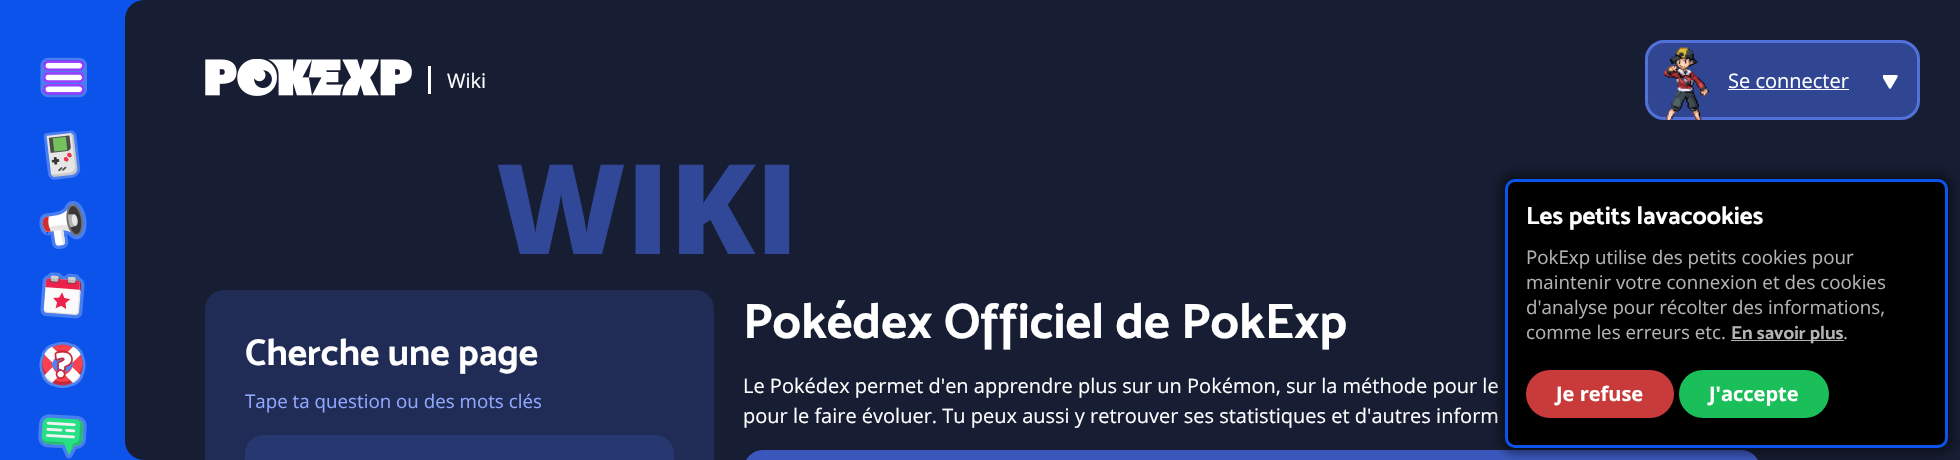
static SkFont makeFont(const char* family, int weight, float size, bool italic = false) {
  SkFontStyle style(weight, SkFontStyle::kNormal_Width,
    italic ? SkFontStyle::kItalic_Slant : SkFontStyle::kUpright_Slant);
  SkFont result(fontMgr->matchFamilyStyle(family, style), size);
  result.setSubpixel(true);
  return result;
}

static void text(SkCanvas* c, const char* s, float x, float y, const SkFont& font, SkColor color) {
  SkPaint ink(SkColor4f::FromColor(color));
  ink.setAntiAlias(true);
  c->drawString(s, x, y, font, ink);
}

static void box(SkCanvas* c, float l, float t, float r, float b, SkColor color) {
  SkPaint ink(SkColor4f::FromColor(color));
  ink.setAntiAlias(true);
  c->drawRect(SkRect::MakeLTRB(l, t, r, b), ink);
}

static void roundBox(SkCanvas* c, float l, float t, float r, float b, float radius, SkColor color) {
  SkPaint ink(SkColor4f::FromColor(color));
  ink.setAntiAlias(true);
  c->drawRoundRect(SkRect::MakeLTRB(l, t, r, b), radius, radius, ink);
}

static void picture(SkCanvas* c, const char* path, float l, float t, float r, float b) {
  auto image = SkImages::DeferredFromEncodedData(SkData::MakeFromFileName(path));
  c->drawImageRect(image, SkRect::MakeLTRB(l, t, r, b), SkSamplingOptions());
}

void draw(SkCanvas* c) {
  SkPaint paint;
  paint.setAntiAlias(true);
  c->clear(0xff0c53ec);
  picture(c, "img_01.png", 40, 57, 87, 98);
  picture(c, "img_02.png", 43, 130, 81, 180);
  picture(c, "img_03.png", 39, 201, 87, 249);
  picture(c, "img_04.png", 40, 272, 85, 319);
  picture(c, "img_05.png", 39, 342, 86, 388);
  picture(c, "img_06.png", 38, 414, 87, 459);
  paint.setColor(0xff171d32);
  c->drawPath(SkPathBuilder().moveTo(144, 0).lineTo(1960, 0).lineTo(1960, 460).lineTo(144, 460).cubicTo(133.5f, 460, 125, 451.5f, 125, 441).lineTo(125, 19).cubicTo(125, 8.5f, 133.5f, 0, 144, 0).close().detach(), paint);
  picture(c, "img_07.png", 205, 59, 412, 96);
  box(c, 428, 66, 431, 94, 0xffffffff);
  SkFont face1 = makeFont("Open Sans", 400, 20);
  text(c, "Wiki", 447, 88, face1, 0xffffffff);
  paint.setColor(0xff304693);
  c->drawRoundRect(SkRect::MakeLTRB(1646.5f, 41.5f, 1918.5f, 118.5f), 17.5f, 17.5f, paint);
  paint.setStyle(SkPaint::kStroke_Style);
  paint.setStrokeWidth(3);
  paint.setColor(0xff5271d9);
  c->drawRoundRect(SkRect::MakeLTRB(1646.5f, 41.5f, 1918.5f, 118.5f), 17.5f, 17.5f, paint);
  picture(c, "img_08.png", 1663, 47, 1709, 120);
  text(c, "Se connecter", 1728, 88, face1, 0xffffffff);
  box(c, 1728, 89, 1849, 90, 0xffffffff);
  picture(c, "img_09.png", 1883, 75, 1898, 89);
  SkFont face2 = makeFont("Open Sans", 800, 125);
  text(c, "WIKI", 496, 254, face2, 0xff314798);
  paint.setStyle(SkPaint::kFill_Style);
  paint.setColor(0xff202c55);
  c->drawPath(SkPathBuilder().moveTo(224, 290).lineTo(695, 290).cubicTo(705.5f, 290, 714, 298.5f, 714, 309).lineTo(714, 460).lineTo(205, 460).lineTo(205, 309).cubicTo(205, 298.5f, 213.5f, 290, 224, 290).close().detach(), paint);
  SkFont face3 = makeFont("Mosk", 700, 37.5f);
  text(c, "Cherche une page", 245, 365, face3, 0xffffffff);
  SkFont face4 = makeFont("Open Sans", 400, 18.75f);
  text(c, "Tape ta question ou des mots clés", 245, 408, face4, 0xff91a8ff);
  paint.setColor(0xff27376f);
  c->drawPath(SkPathBuilder().moveTo(264, 435).lineTo(655, 435).cubicTo(665.5f, 435, 674, 443.5f, 674, 454).lineTo(674, 460).lineTo(245, 460).lineTo(245, 454).cubicTo(245, 443.5f, 253.5f, 435, 264, 435).close().detach(), paint);
  SkFont face5 = makeFont("Mosk", 700, 50);
  text(c, "Pokédex Officiel de PokExp", 743, 338, face5, 0xffffffff);
  text(c, "Le Pokédex permet d'en apprendre plus sur un Pokémon, sur la méthode pour le", 743, 393, face1, 0xffffffff);
  text(c, "pour le faire évoluer. Tu peux aussi y retrouver ses statistiques et d'autres inform", 743, 423, face1, 0xffffffff);
  c->save();
  c->clipPath(SkPathBuilder().moveTo(763, 450).lineTo(1741, 450).cubicTo(1751.5f, 450, 1760, 458.5f, 1760, 469).lineTo(1760, 3551).cubicTo(1760, 3561.5f, 1751.5f, 3570, 1741, 3570).lineTo(763, 3570).cubicTo(752.5f, 3570, 744, 3561.5f, 744, 3551).lineTo(744, 469).cubicTo(744, 458.5f, 752.5f, 450, 763, 450).close().detach(), true);
  box(c, 746, 450, 889, 460, 0xff3a57bc);
  c->restore();
  box(c, 889, 450, 1401, 460, 0xff3a57bc);
  c->save();
  c->clipPath(SkPathBuilder().moveTo(763, 450).lineTo(1741, 450).cubicTo(1751.5f, 450, 1760, 458.5f, 1760, 469).lineTo(1760, 3551).cubicTo(1760, 3561.5f, 1751.5f, 3570, 1741, 3570).lineTo(763, 3570).cubicTo(752.5f, 3570, 744, 3561.5f, 744, 3551).lineTo(744, 469).cubicTo(744, 458.5f, 752.5f, 450, 763, 450).close().detach(), true);
  box(c, 1401, 450, 1758, 460, 0xff3a57bc);
  c->restore();
  paint.setColor(0x66000000);
  paint.setMaskFilter(SkMaskFilter::MakeBlur(kNormal_SkBlurStyle, 4.5f));
  c->drawRoundRect(SkRect::MakeLTRB(1499, 173, 1954, 454), 16, 16, paint);
  paint.setMaskFilter(nullptr);
  paint.setColor(0xff000000);
  c->drawRoundRect(SkRect::MakeLTRB(1506.5f, 180.5f, 1946.5f, 446.5f), 8.5f, 8.5f, paint);
  paint.setStyle(SkPaint::kStroke_Style);
  paint.setColor(0xff0c53ec);
  c->drawRoundRect(SkRect::MakeLTRB(1506.5f, 180.5f, 1946.5f, 446.5f), 8.5f, 8.5f, paint);
  SkFont face6 = makeFont("Mosk", 700, 25);
  text(c, "Les petits lavacookies", 1526, 224, face6, 0xffffffff);
  text(c, "PokExp utilise des petits cookies pour", 1526, 264, face4, 0xffb3b3b3);
  text(c, "maintenir votre connexion et des cookies", 1526, 289, face4, 0xffb3b3b3);
  text(c, "d'analyse pour récolter des informations,", 1526, 314, face4, 0xffb3b3b3);
  text(c, "comme les erreurs etc.", 1526, 339, face4, 0xffb3b3b3);
  box(c, 1731, 340, 1844, 341, 0xffb3b3b3);
  SkFont face7 = makeFont("Mosk", 700, 18.75f);
  text(c, "En savoir plus", 1731, 339, face7, 0xffb3b3b3);
  text(c, ".", 1843, 339, face4, 0xffb3b3b3);
  roundBox(c, 1526, 370, 1674, 418, 24, 0xffc93b3b);
  SkFont face8 = makeFont("Open Sans", 700, 20);
  text(c, "Je refuse", 1556, 401, face8, 0xffffffff);
  roundBox(c, 1679, 370, 1829, 418, 24, 0xff1bbf5a);
  text(c, "J'accepte", 1709, 401, face8, 0xffffffff);
}
